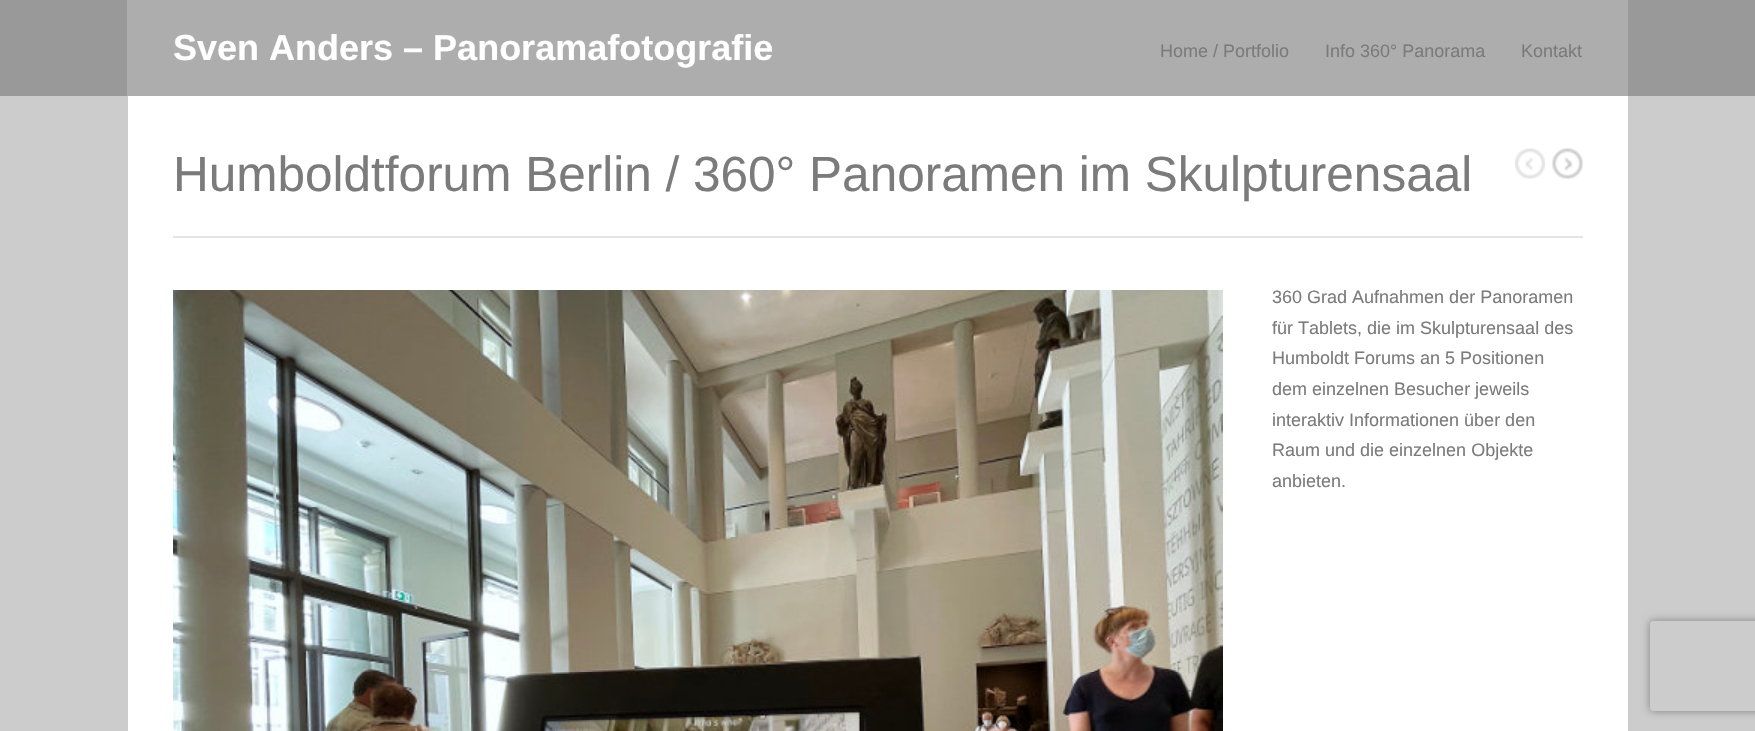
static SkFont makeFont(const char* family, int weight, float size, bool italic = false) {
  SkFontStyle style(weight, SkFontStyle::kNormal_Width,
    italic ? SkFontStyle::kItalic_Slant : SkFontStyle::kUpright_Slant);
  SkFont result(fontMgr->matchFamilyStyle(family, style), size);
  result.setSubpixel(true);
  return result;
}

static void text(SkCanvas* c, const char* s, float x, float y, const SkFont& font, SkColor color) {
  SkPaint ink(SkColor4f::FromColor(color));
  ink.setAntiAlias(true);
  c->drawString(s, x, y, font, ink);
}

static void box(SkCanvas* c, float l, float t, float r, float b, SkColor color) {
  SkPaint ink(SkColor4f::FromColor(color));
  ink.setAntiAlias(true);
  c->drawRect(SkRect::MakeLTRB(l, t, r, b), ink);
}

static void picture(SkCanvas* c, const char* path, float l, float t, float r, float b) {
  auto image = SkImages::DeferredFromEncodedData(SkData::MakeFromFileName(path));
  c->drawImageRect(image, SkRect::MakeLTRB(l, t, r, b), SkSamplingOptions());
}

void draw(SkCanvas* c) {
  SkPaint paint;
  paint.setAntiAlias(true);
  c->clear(0xffcccccc);
  box(c, 0, 0, 1755, 96, 0xff999999);
  box(c, 127, 0, 1628, 96, 0xffadadad);
  SkFont face1 = makeFont("Liberation Sans", 700, 36);
  text(c, "Sven Anders – Panoramafotografie", 173, 60, face1, 0xffffffff);
  SkFont face2 = makeFont("Liberation Sans", 400, 18);
  text(c, "Home / Portfolio", 1160, 57, face2, 0xff7b7b7b);
  text(c, "Info 360° Panorama", 1325, 57, face2, 0xff7b7b7b);
  text(c, "Kontakt", 1521, 57, face2, 0xff7b7b7b);
  box(c, 128, 96, 1628, 731, 0xffffffff);
  box(c, 173, 236, 1583, 238, 0xffe4e4e4);
  SkFont face3 = makeFont("Liberation Sans", 400, 49.5f);
  text(c, "Humboldtforum Berlin / 360° Panoramen im Skulpturensaal", 173, 191, face3, 0xff7b7b7b);
  picture(c, "img_01.png", 1515, 148, 1545, 179);
  picture(c, "img_02.png", 1552, 148, 1583, 179);
  picture(c, "img_03.png", 173, 290, 1223, 731);
  text(c, "360 Grad Aufnahmen der Panoramen", 1272, 303, face2, 0xff7b7b7b);
  text(c, "für Tablets, die im Skulpturensaal des", 1272, 334, face2, 0xff7b7b7b);
  text(c, "Humboldt Forums an 5 Positionen", 1272, 364, face2, 0xff7b7b7b);
  text(c, "dem einzelnen Besucher jeweils", 1272, 395, face2, 0xff7b7b7b);
  text(c, "interaktiv Informationen über den", 1272, 426, face2, 0xff7b7b7b);
  text(c, "Raum und die einzelnen Objekte", 1272, 456, face2, 0xff7b7b7b);
  text(c, "anbieten.", 1272, 487, face2, 0xff7b7b7b);
  c->save();
  c->clipPath(SkPathBuilder(SkPathFillType::kEvenOdd).moveTo(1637, 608).lineTo(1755, 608).lineTo(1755, 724).lineTo(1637, 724).close().moveTo(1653, 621).lineTo(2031, 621).cubicTo(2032.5f, 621, 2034, 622.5f, 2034, 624).lineTo(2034, 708).cubicTo(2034, 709.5f, 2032.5f, 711, 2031, 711).lineTo(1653, 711).cubicTo(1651.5f, 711, 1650, 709.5f, 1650, 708).lineTo(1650, 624).cubicTo(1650, 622.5f, 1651.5f, 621, 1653, 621).close().detach(), true);
  paint.setColor(0xff808080);
  paint.setMaskFilter(SkMaskFilter::MakeBlur(kNormal_SkBlurStyle, 4));
  c->drawRoundRect(SkRect::MakeLTRB(1650, 621, 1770, 711), 3, 3, paint);
  paint.setMaskFilter(nullptr);
  c->restore();
}
